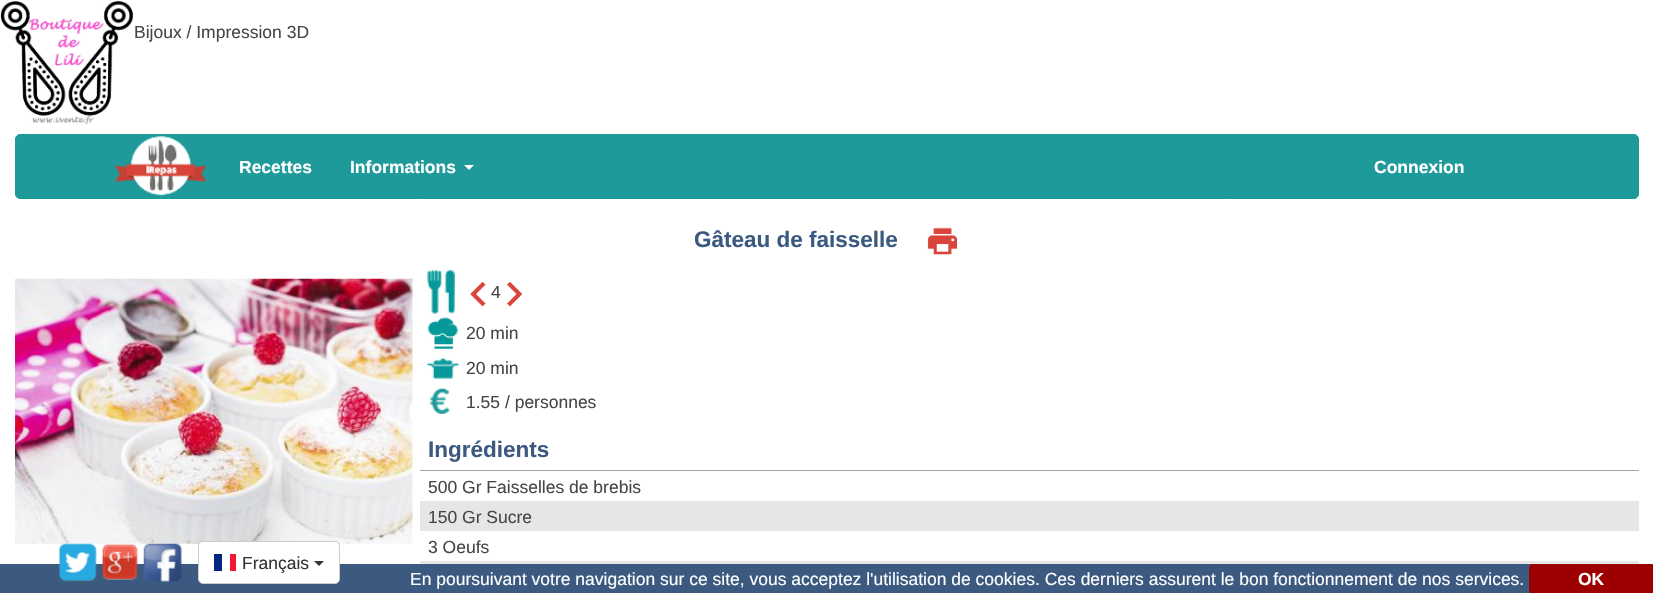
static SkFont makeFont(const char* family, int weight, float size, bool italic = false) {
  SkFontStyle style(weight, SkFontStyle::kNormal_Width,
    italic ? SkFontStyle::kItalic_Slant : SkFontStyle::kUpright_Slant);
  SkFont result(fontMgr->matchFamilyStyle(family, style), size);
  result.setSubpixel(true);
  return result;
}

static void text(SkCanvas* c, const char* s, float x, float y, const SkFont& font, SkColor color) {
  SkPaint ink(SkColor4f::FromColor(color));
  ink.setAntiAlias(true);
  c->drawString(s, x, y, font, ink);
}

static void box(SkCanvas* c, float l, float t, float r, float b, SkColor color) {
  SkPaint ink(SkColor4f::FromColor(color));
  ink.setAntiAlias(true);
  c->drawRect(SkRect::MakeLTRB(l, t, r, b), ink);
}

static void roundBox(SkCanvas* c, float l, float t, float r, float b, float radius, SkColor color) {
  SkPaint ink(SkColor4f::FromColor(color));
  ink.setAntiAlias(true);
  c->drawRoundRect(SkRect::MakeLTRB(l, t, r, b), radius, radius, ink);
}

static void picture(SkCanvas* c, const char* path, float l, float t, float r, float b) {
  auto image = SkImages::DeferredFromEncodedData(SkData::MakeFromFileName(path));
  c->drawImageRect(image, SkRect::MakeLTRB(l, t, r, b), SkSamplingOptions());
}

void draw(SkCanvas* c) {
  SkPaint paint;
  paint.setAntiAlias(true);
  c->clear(0xffffffff);
  picture(c, "img_01.png", 0, 1, 134, 125);
  SkFont face1 = makeFont("Liberation Sans", 400, 17.5f);
  text(c, "Bijoux / Impression 3D", 134, 38, face1, 0xff464646);
  paint.setColor(0xff1e9a9a);
  c->drawRoundRect(SkRect::MakeLTRB(15.5f, 134.5f, 1638.5f, 198.5f), 4.5f, 4.5f, paint);
  paint.setStyle(SkPaint::kStroke_Style);
  paint.setStrokeWidth(1);
  c->drawRoundRect(SkRect::MakeLTRB(15.5f, 134.5f, 1638.5f, 198.5f), 4.5f, 4.5f, paint);
  picture(c, "img_02.png", 115, 136, 207, 196);
  SkFont face2 = makeFont("Liberation Sans", 700, 17.5f);
  text(c, "Recettes", 239, 173, face2, 0xffffffff);
  text(c, "Informations", 350, 173, face2, 0xffffffff);
  paint.setStyle(SkPaint::kFill_Style);
  paint.setColor(0xffffffff);
  c->drawPath(SkPathBuilder().moveTo(464, 165).lineTo(474, 165).lineTo(469, 170).close().detach(), paint);
  text(c, "Connexion", 1374, 173, face2, 0xffffffff);
  SkFont face3 = makeFont("Liberation Sans", 700, 22.5f);
  text(c, "Gâteau de faisselle", 694, 247, face3, 0xff3c5a80);
  picture(c, "img_03.png", 927, 227, 958, 255);
  picture(c, "img_04.png", 15, 278, 413, 544);
  picture(c, "img_05.png", 427, 270, 455, 314);
  picture(c, "img_06.png", 470, 281, 486, 307);
  text(c, "4", 491, 298, face1, 0xff464646);
  picture(c, "img_07.png", 507, 281, 523, 307);
  picture(c, "img_08.png", 427, 317, 458, 349);
  text(c, "20 min", 466, 339, face1, 0xff464646);
  picture(c, "img_09.png", 427, 357, 459, 379);
  text(c, "20 min", 466, 374, face1, 0xff464646);
  picture(c, "img_10.png", 429, 388, 451, 414);
  text(c, "1.55 / personnes", 466, 408, face1, 0xff464646);
  box(c, 420, 470, 1639, 471, 0xffa4a4a4);
  text(c, "Ingrédients", 428, 457, face3, 0xff3c5a80);
  text(c, "500 Gr Faisselles de brebis", 428, 493, face1, 0xff464646);
  box(c, 420, 501, 1639, 531, 0xffe6e6e6);
  text(c, "150 Gr Sucre", 428, 523, face1, 0xff464646);
  text(c, "3 Oeufs", 428, 553, face1, 0xff464646);
  box(c, 420, 561, 1639, 564, 0xffe6e6e6);
  box(c, 0, 564, 1653, 593, 0xff3c5a80);
  picture(c, "img_11.png", 58, 543, 97, 582);
  picture(c, "img_12.png", 101, 544, 138, 580);
  picture(c, "img_13.png", 143, 543, 182, 582);
  c->drawRoundRect(SkRect::MakeLTRB(198.5f, 541.5f, 339.5f, 583.5f), 4.5f, 4.5f, paint);
  paint.setStyle(SkPaint::kStroke_Style);
  paint.setColor(0xffcccccc);
  c->drawRoundRect(SkRect::MakeLTRB(198.5f, 541.5f, 339.5f, 583.5f), 4.5f, 4.5f, paint);
  box(c, 214, 554, 222, 571, 0xff00267f);
  box(c, 230, 554, 236, 571, 0xfff31830);
  text(c, "Français", 242, 569, face1, 0xff333333);
  paint.setStyle(SkPaint::kFill_Style);
  paint.setColor(0xff333333);
  c->drawPath(SkPathBuilder().moveTo(314, 561).lineTo(324, 561).lineTo(319, 566).close().detach(), paint);
  text(c, "En poursuivant votre navigation sur ce site, vous acceptez l'utilisation de cookies. Ces derniers assurent le bon fonctionnement de nos services.", 410, 585, face1, 0xffffffff);
  roundBox(c, 1529, 564, 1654, 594, 4, 0xff9d0000);
  text(c, "OK", 1578, 585, face2, 0xffffffff);
}
